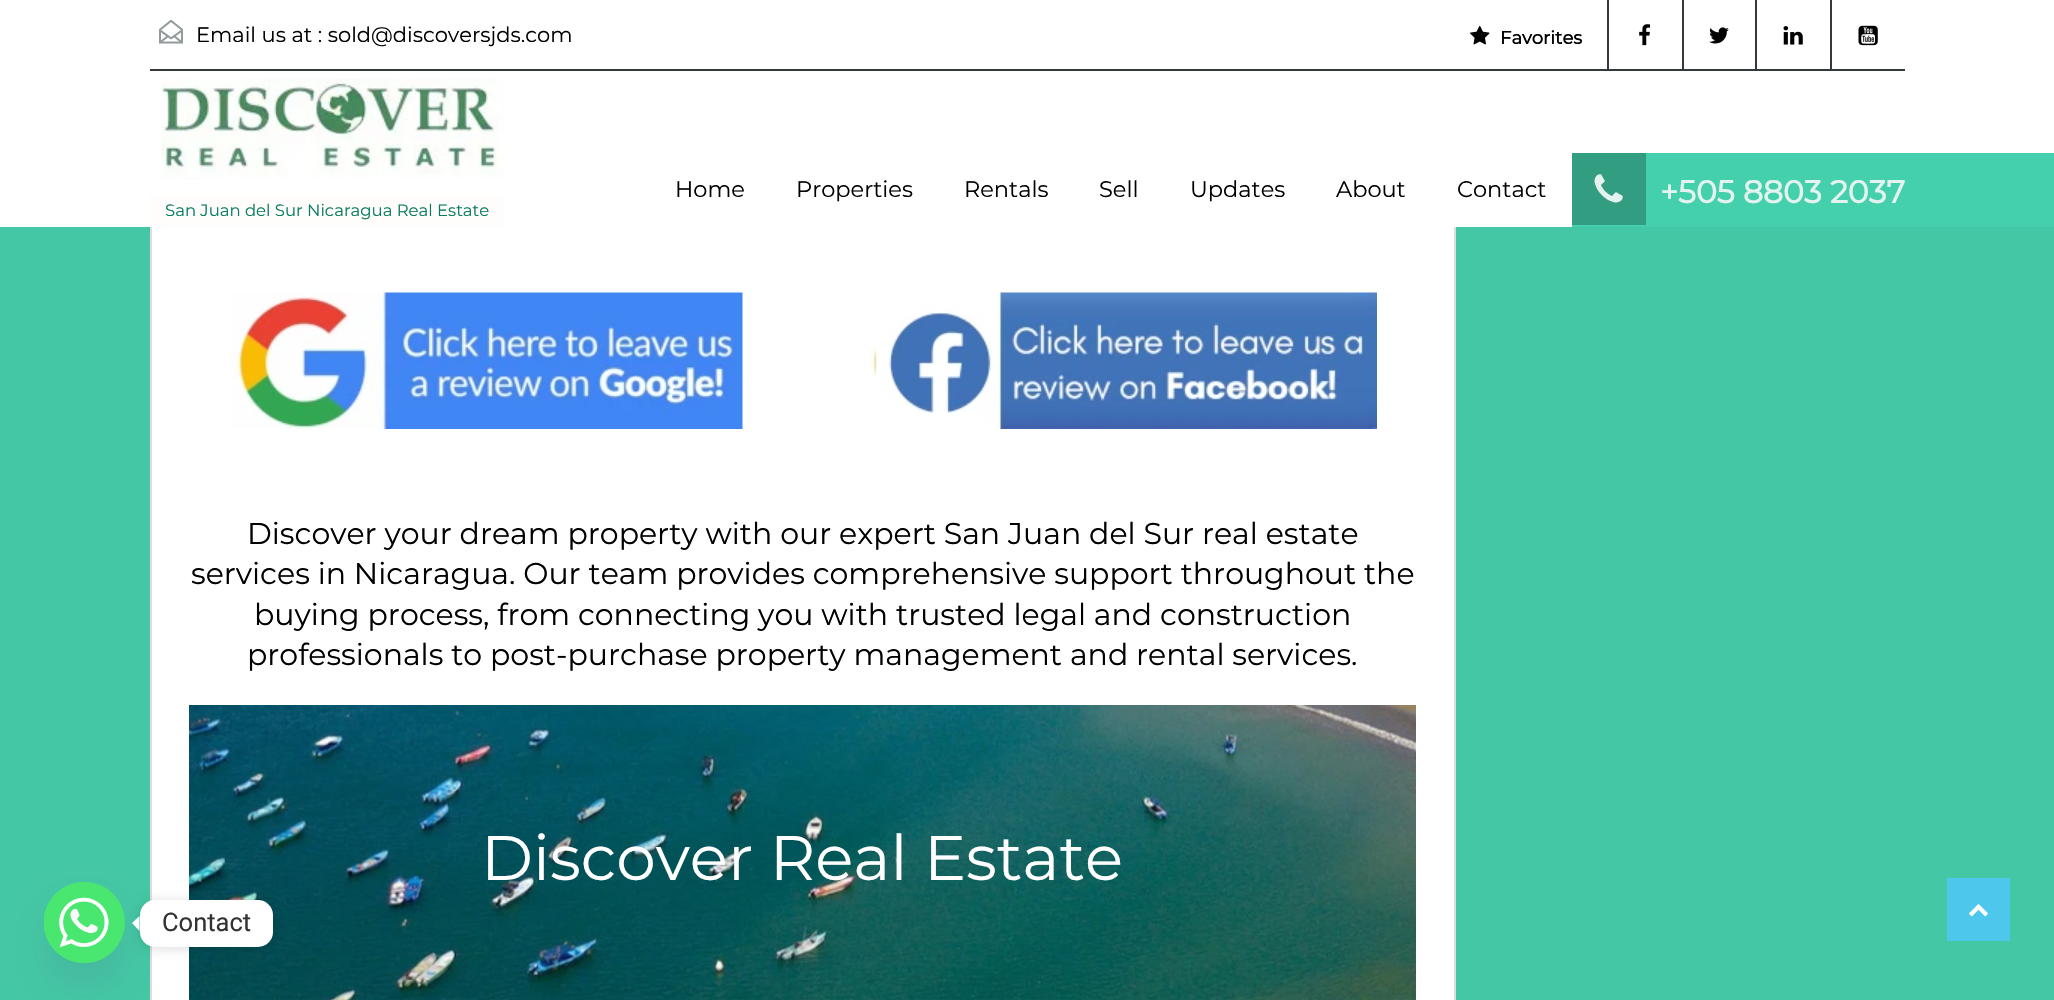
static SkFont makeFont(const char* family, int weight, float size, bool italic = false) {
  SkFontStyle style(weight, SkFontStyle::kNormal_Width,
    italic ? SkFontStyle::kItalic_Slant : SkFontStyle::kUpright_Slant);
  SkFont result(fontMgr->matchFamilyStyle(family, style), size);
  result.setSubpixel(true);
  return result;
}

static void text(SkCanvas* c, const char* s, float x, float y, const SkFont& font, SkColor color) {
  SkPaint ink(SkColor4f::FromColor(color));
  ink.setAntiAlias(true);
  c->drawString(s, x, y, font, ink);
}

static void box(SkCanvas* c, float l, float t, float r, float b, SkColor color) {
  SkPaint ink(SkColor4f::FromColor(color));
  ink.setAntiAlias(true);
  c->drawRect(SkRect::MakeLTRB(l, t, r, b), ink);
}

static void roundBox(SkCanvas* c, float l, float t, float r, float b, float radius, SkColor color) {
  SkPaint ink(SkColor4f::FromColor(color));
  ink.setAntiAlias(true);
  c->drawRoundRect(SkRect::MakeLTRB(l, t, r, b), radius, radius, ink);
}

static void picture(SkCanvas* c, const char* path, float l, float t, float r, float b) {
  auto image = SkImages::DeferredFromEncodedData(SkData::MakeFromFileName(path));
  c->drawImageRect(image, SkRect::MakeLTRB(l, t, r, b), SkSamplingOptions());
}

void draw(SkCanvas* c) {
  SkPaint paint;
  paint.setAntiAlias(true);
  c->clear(0xff44c7a4);
  box(c, 0, 0, 2054, 227, 0xffffffff);
  box(c, 150, 69, 1905, 71, 0xff343a3b);
  picture(c, "img_01.png", 159, 20, 183, 44);
  SkFont face1 = makeFont("Montserrat", 100, 21);
  text(c, "Email us at : sold@discoversjds.com", 196, 42, face1, 0xff000000);
  picture(c, "img_02.png", 1470, 25, 1490, 45);
  SkFont face2 = makeFont("Montserrat", 700, 18);
  text(c, "Favorites", 1500, 44, face2, 0xff000000);
  box(c, 1607, 0, 1609, 69, 0xff343a3b);
  picture(c, "img_03.png", 1639, 24, 1651, 46);
  box(c, 1682, 0, 1684, 69, 0xff343a3b);
  picture(c, "img_04.png", 1709, 27, 1729, 44);
  box(c, 1755, 0, 1757, 69, 0xff343a3b);
  picture(c, "img_05.png", 1783, 26, 1803, 45);
  box(c, 1830, 0, 1832, 69, 0xff343a3b);
  picture(c, "img_06.png", 1858, 25, 1878, 46);
  SkFont face3 = makeFont("Montserrat", 100, 22.5f);
  text(c, "Home", 675, 197, face3, 0xff000000);
  text(c, "Properties", 796, 197, face3, 0xff000000);
  text(c, "Rentals", 964, 197, face3, 0xff000000);
  text(c, "Sell", 1099, 197, face3, 0xff000000);
  text(c, "Updates", 1190, 197, face3, 0xff000000);
  text(c, "About", 1336, 197, face3, 0xff000000);
  text(c, "Contact", 1457, 197, face3, 0xff000000);
  box(c, 1572, 153, 2054, 227, 0xff44d0ac);
  box(c, 1572, 153, 1646, 225, 0xff339d82);
  picture(c, "img_07.png", 1594, 174, 1623, 203);
  SkFont face4 = makeFont("Montserrat", 700, 31.5f);
  text(c, "+505 8803 2037", 1660, 203, face4, 0xffe4f3ef);
  picture(c, "img_08.png", 161, 78, 504, 180);
  box(c, 150, 195, 504, 227, 0xfffffcfc);
  SkFont face5 = makeFont("Montserrat", 100, 16.5f);
  text(c, "San Juan del Sur Nicaragua Real Estate", 165, 216, face5, 0xff087d5f);
  box(c, 1454, 227, 1456, 1000, 0xffdedede);
  box(c, 150, 227, 152, 1000, 0xffdedede);
  box(c, 152, 227, 1454, 1000, 0xffffffff);
  picture(c, "img_09.png", 230, 292, 743, 429);
  picture(c, "img_10.png", 870, 292, 1377, 429);
  SkFont face6 = makeFont("Montserrat", 100, 30);
  text(c, "Discover your dream property with our expert San Juan del Sur real estate", 247, 544, face6, 0xff000000);
  text(c, "services in Nicaragua. Our team provides comprehensive support throughout the", 191, 584, face6, 0xff000000);
  text(c, "buying process, from connecting you with trusted legal and construction", 254, 625, face6, 0xff000000);
  text(c, "professionals to post-purchase property management and rental services.", 247, 665, face6, 0xff000000);
  picture(c, "img_11.png", 189, 705, 1416, 1000);
  SkFont face7 = makeFont("Montserrat", 100, 63);
  text(c, "Discover Real Estate", 481, 880, face7, 0xffffffff);
  paint.setColor(0x2949687e);
  paint.setMaskFilter(SkMaskFilter::MakeBlur(kNormal_SkBlurStyle, 18));
  c->drawRoundRect(SkRect::MakeLTRB(44, 906, 125, 987), 40.5f, 40.5f, paint);
  paint.setMaskFilter(nullptr);
  paint.setColor(0xff49e670);
  c->drawCircle(84.5f, 922.5f, 40.5f, paint);
  picture(c, "img_12.png", 44, 882, 114, 963);
  paint.setColor(0x26000000);
  paint.setMaskFilter(SkMaskFilter::MakeBlur(kNormal_SkBlurStyle, 6));
  c->drawRoundRect(SkRect::MakeLTRB(140, 902, 273, 948), 15, 15, paint);
  paint.setMaskFilter(nullptr);
  roundBox(c, 140, 900, 273, 947, 15, 0xffffffff);
  paint.setColor(0xffffffff);
  c->drawPath(SkPathBuilder().moveTo(139.5f, 916).lineTo(139.5f, 931).lineTo(132, 923).close().detach(), paint);
  SkFont face8 = makeFont("Roboto", 400, 25.5f);
  text(c, "Contact", 162, 931, face8, 0xff333333);
  box(c, 1947, 878, 2010, 941, 0xff4dc7ec);
  picture(c, "img_13.png", 1969, 904, 1988, 917);
}
